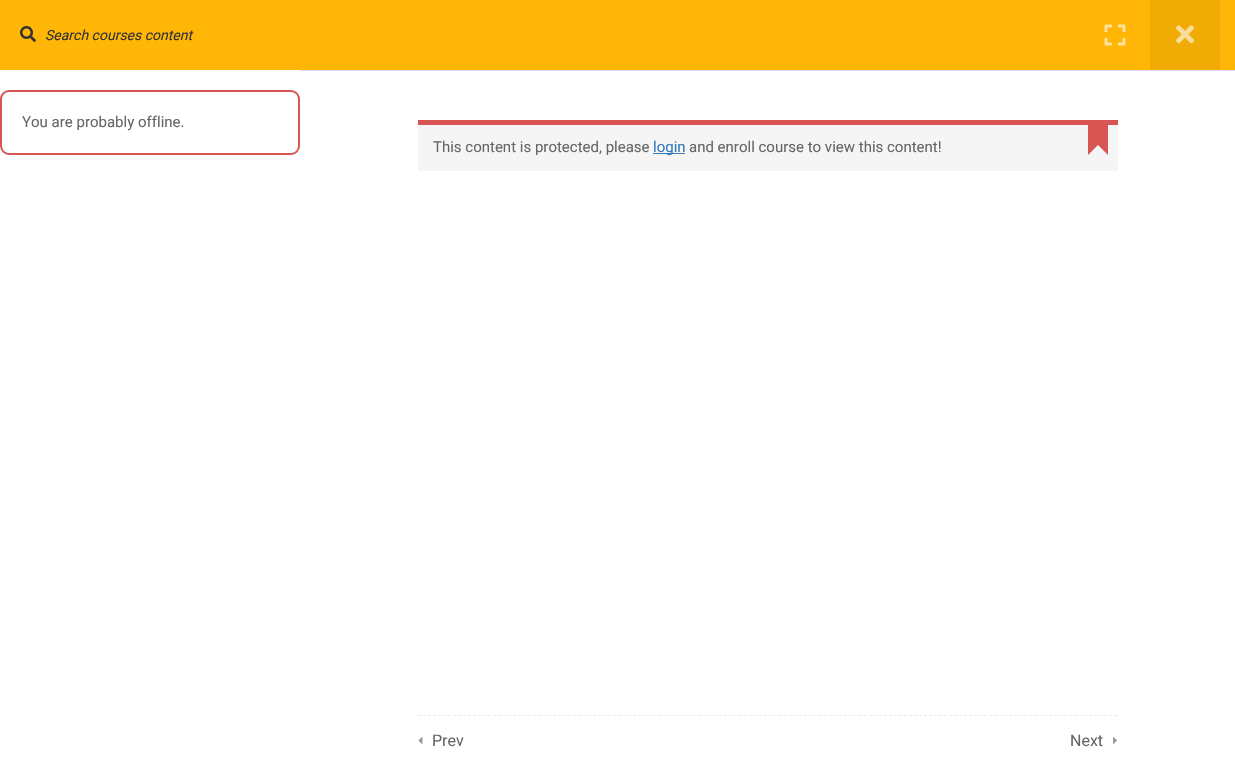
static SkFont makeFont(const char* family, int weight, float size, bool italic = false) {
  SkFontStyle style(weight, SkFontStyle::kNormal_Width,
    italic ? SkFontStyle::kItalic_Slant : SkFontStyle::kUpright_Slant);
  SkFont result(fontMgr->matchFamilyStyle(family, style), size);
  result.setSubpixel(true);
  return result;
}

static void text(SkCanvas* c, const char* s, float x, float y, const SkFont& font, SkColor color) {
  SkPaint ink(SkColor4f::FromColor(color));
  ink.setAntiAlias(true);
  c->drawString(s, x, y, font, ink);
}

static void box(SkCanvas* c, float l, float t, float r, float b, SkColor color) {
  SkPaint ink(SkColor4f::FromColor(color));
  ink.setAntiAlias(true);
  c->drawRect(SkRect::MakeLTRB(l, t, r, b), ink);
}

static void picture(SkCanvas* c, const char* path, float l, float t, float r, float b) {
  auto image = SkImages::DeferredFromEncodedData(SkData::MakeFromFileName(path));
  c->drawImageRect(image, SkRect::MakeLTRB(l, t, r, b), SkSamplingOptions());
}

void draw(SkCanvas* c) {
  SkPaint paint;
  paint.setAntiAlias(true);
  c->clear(0xffffffff);
  box(c, 0, 0, 1235, 70, 0xffffb606);
  picture(c, "img_01.png", 20, 26, 36, 42);
  SkFont face1 = makeFont("Roboto", 400, 14, true);
  text(c, "Search courses content", 45, 40, face1, 0xff333333);
  paint.setStyle(SkPaint::kStroke_Style);
  paint.setStrokeWidth(2);
  paint.setColor(0xffd85554);
  c->drawRoundRect(SkRect::MakeLTRB(1, 91, 299, 154), 8, 8, paint);
  SkFont face2 = makeFont("Roboto", 400, 15);
  text(c, "You are probably offline.", 22, 127, face2, 0xff666666);
  box(c, 300, 70, 1235, 71, 0xffd9e0f1);
  picture(c, "img_02.png", 1104, 24, 1126, 46);
  box(c, 1150, 0, 1220, 70, 0xfff0ab04);
  picture(c, "img_03.png", 1176, 25, 1194, 44);
  box(c, 418, 125, 1118, 171, 0xfff5f5f5);
  box(c, 418, 120, 1118, 125, 0xffd85554);
  text(c, "This content is protected, please", 433, 152, face2, 0xff666666);
  box(c, 653, 153, 685, 154, 0xff337ab7);
  text(c, "login", 653, 152, face2, 0xff337ab7);
  text(c, "and enroll course to view this content!", 689, 152, face2, 0xff666666);
  box(c, 1088, 125, 1108, 155, 0xffd85554);
  paint.setStyle(SkPaint::kFill_Style);
  paint.setColor(0xfff5f5f5);
  c->drawPath(SkPathBuilder().moveTo(1108, 155).lineTo(1088, 155).lineTo(1098, 145).close().detach(), paint);
  paint.setStyle(SkPaint::kStroke_Style);
  paint.setStrokeWidth(1);
  paint.setColor(0xffebebeb);
  paint.setPathEffect(SkDashPathEffect::Make({{3, 2.01f}}, 0));
  c->drawPath(SkPathBuilder().moveTo(418, 715.5f).lineTo(1118, 715.5f).detach(), paint);
  paint.setPathEffect(nullptr);
  picture(c, "img_04.png", 418, 737, 423, 744);
  SkFont face3 = makeFont("Roboto", 400, 16);
  text(c, "Prev", 432, 746, face3, 0xff666666);
  text(c, "Next", 1070, 746, face3, 0xff666666);
  picture(c, "img_05.png", 1113, 737, 1117, 744);
}
